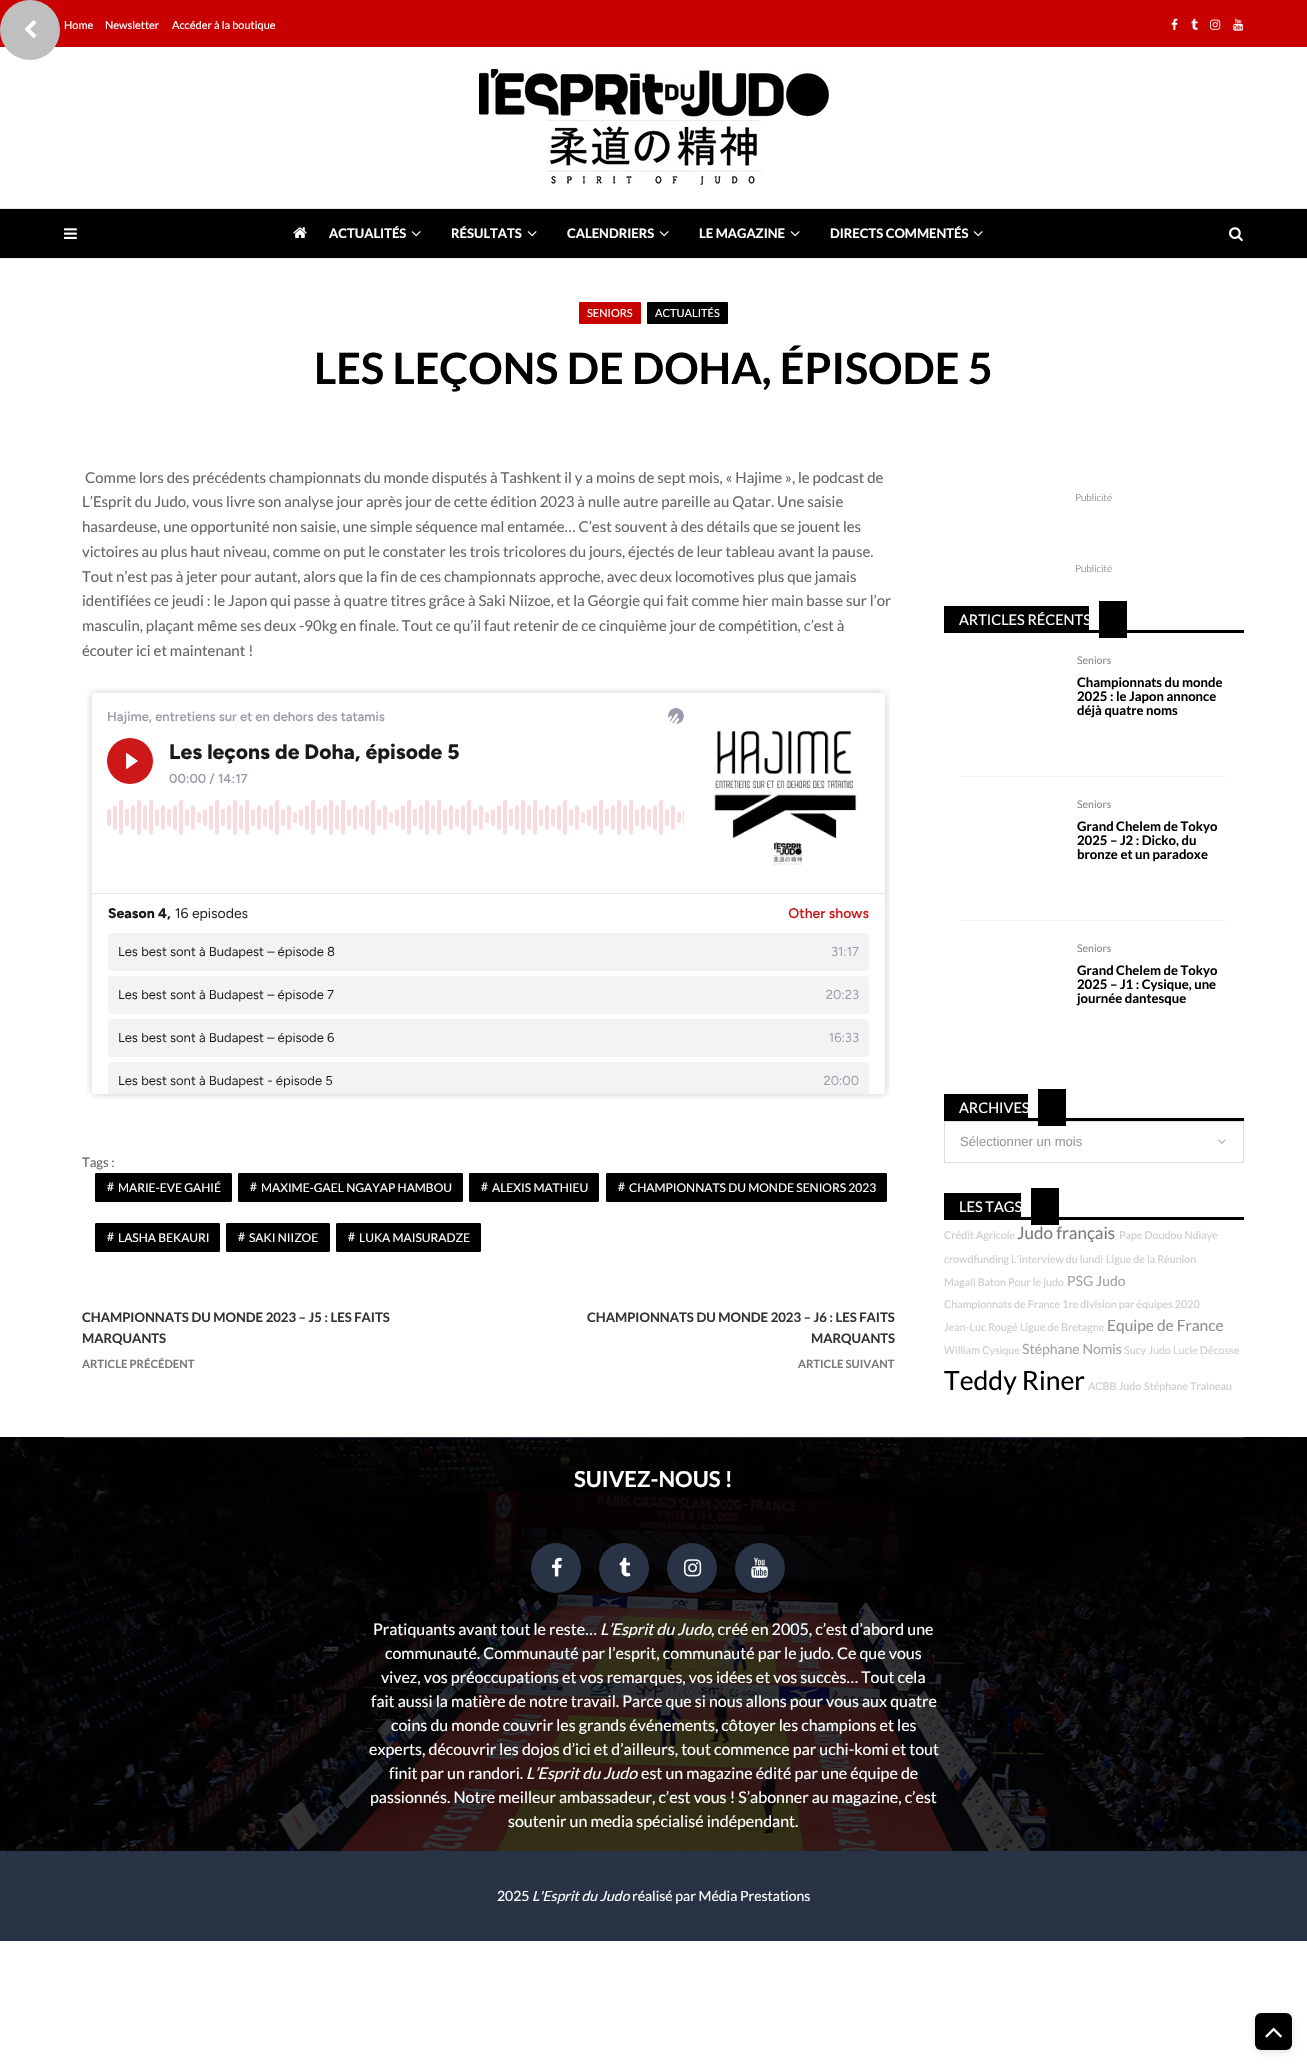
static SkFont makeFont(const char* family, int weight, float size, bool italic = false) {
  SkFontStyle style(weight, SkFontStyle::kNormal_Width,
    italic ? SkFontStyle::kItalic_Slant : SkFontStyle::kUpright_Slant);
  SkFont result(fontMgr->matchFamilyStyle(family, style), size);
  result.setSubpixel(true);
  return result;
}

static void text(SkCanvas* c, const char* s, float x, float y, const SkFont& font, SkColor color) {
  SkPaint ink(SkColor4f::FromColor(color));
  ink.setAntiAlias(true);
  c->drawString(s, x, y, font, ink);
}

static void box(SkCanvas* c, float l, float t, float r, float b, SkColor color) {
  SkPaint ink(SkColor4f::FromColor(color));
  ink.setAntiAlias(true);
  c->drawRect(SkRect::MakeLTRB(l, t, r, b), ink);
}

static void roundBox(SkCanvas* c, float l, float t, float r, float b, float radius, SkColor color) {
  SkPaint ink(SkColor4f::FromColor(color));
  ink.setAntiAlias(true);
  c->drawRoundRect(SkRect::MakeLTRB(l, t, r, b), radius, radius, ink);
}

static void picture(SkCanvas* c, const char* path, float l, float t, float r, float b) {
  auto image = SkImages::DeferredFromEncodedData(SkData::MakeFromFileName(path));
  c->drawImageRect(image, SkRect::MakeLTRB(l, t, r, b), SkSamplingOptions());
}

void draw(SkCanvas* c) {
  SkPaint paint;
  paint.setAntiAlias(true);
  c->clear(0xffffffff);
  box(c, 0, 0, 1307, 47, 0xffc90000);
  paint.setColor(0xffbfbfbf);
  c->drawCircle(30, 30, 30, paint);
  picture(c, "img_01.png", 24, 20, 37, 38);
  SkFont face1 = makeFont("Lato", 400, 11);
  text(c, "Home", 64, 29, face1, 0xffffffff);
  text(c, "Newsletter", 105, 29, face1, 0xffffffff);
  text(c, "Accéder à la boutique", 172, 29, face1, 0xffffffff);
  picture(c, "img_02.png", 1171, 18, 1178, 30);
  picture(c, "img_03.png", 1191, 18, 1198, 30);
  picture(c, "img_04.png", 1210, 19, 1221, 30);
  picture(c, "img_05.png", 1233, 18, 1244, 31);
  picture(c, "img_06.png", 479, 69, 829, 185);
  box(c, 0, 209, 1307, 258, 0xff000000);
  box(c, 0, 208, 1307, 209, 0xffeaeaea);
  box(c, 0, 258, 1307, 259, 0xffeaeaea);
  picture(c, "img_07.png", 64, 228, 77, 239);
  picture(c, "img_08.png", 293, 227, 307, 238);
  SkFont face2 = makeFont("Lato", 700, 13);
  text(c, "ACTUALITÉS", 329, 238, face2, 0xffffffff);
  picture(c, "img_09.png", 411, 231, 421, 237);
  text(c, "RÉSULTATS", 451, 238, face2, 0xffffffff);
  picture(c, "img_09.png", 527, 231, 537, 237);
  text(c, "CALENDRIERS", 567, 238, face2, 0xffffffff);
  picture(c, "img_09.png", 659, 231, 669, 237);
  text(c, "LE MAGAZINE", 699, 238, face2, 0xffffffff);
  picture(c, "img_09.png", 790, 231, 800, 237);
  text(c, "DIRECTS COMMENTÉS", 830, 238, face2, 0xffffffff);
  picture(c, "img_09.png", 973, 231, 983, 237);
  picture(c, "img_10.png", 1229, 227, 1243, 242);
  roundBox(c, 579, 302, 641, 324, 1, 0xffc90000);
  text(c, "SENIORS", 587, 317, face1, 0xffffffff);
  roundBox(c, 647, 302, 728, 324, 1, 0xff000000);
  text(c, "ACTUALITÉS", 655, 317, face1, 0xffffffff);
  SkFont face3 = makeFont("Lato", 700, 43.1f);
  text(c, "LES LEÇONS DE DOHA, ÉPISODE 5", 314, 384, face3, 0xff000000);
  SkFont face4 = makeFont("Lato", 400, 15);
  text(c, "Comme lors des précédents championnats du monde disputés à Tashkent il y a moins de sept mois, « Hajime », le podcast de", 85, 483, face4, 0xff666666);
  text(c, "L’Esprit du Judo, vous livre son analyse jour après jour de cette édition 2023 à nulle autre pareille au Qatar. Une saisie", 82, 507, face4, 0xff666666);
  text(c, "hasardeuse, une opportunité non saisie, une simple séquence mal entamée… C’est souvent à des détails que se jouent les", 82, 532, face4, 0xff666666);
  text(c, "victoires au plus haut niveau, comme on put le constater les trois tricolores du jours, éjectés de leur tableau avant la pause.", 82, 557, face4, 0xff666666);
  text(c, "Tout n’est pas à jeter pour autant, alors que la fin de ces championnats approche, avec deux locomotives plus que jamais", 82, 582, face4, 0xff666666);
  text(c, "identifiées ce jeudi : le Japon qui passe à quatre titres grâce à Saki Niizoe, et la Géorgie qui fait comme hier main basse sur l’or", 82, 606, face4, 0xff666666);
  text(c, "masculin, plaçant même ses deux -90kg en finale. Tout ce qu’il faut retenir de ce cinquième jour de compétition, c’est à", 82, 631, face4, 0xff666666);
  text(c, "écouter ici et maintenant !", 82, 656, face4, 0xff666666);
  picture(c, "img_11.png", 87, 688, 890, 1099);
  SkFont face5 = makeFont("Lato", 400, 13.1f);
  text(c, "Tags :", 82, 1167, face5, 0xff666666);
  paint.setColor(0xff000000);
  c->drawRoundRect(SkRect::MakeLTRB(95.5f, 1173.5f, 231.5f, 1201.5f), 0.5f, 0.5f, paint);
  paint.setStyle(SkPaint::kStroke_Style);
  paint.setStrokeWidth(1);
  c->drawRoundRect(SkRect::MakeLTRB(95.5f, 1173.5f, 231.5f, 1201.5f), 0.5f, 0.5f, paint);
  SkFont face6 = makeFont("Lato", 400, 12);
  text(c, "#", 107, 1191, face6, 0xffffffff);
  text(c, "MARIE-EVE GAHIÉ", 118, 1192, face6, 0xffffffff);
  paint.setStyle(SkPaint::kFill_Style);
  c->drawRoundRect(SkRect::MakeLTRB(238.5f, 1173.5f, 462.5f, 1201.5f), 0.5f, 0.5f, paint);
  paint.setStyle(SkPaint::kStroke_Style);
  c->drawRoundRect(SkRect::MakeLTRB(238.5f, 1173.5f, 462.5f, 1201.5f), 0.5f, 0.5f, paint);
  text(c, "#", 250, 1191, face6, 0xffffffff);
  text(c, "MAXIME-GAEL NGAYAP HAMBOU", 261, 1192, face6, 0xffffffff);
  paint.setStyle(SkPaint::kFill_Style);
  c->drawRoundRect(SkRect::MakeLTRB(469.5f, 1173.5f, 598.5f, 1201.5f), 0.5f, 0.5f, paint);
  paint.setStyle(SkPaint::kStroke_Style);
  c->drawRoundRect(SkRect::MakeLTRB(469.5f, 1173.5f, 598.5f, 1201.5f), 0.5f, 0.5f, paint);
  text(c, "#", 481, 1191, face6, 0xffffffff);
  text(c, "ALEXIS MATHIEU", 492, 1192, face6, 0xffffffff);
  paint.setStyle(SkPaint::kFill_Style);
  c->drawRoundRect(SkRect::MakeLTRB(606.5f, 1173.5f, 886.5f, 1201.5f), 0.5f, 0.5f, paint);
  paint.setStyle(SkPaint::kStroke_Style);
  c->drawRoundRect(SkRect::MakeLTRB(606.5f, 1173.5f, 886.5f, 1201.5f), 0.5f, 0.5f, paint);
  text(c, "#", 618, 1191, face6, 0xffffffff);
  text(c, "CHAMPIONNATS DU MONDE SENIORS 2023", 629, 1192, face6, 0xffffffff);
  paint.setStyle(SkPaint::kFill_Style);
  c->drawRoundRect(SkRect::MakeLTRB(95.5f, 1223.5f, 219.5f, 1251.5f), 0.5f, 0.5f, paint);
  paint.setStyle(SkPaint::kStroke_Style);
  c->drawRoundRect(SkRect::MakeLTRB(95.5f, 1223.5f, 219.5f, 1251.5f), 0.5f, 0.5f, paint);
  text(c, "#", 107, 1241, face6, 0xffffffff);
  text(c, "LASHA BEKAURI", 118, 1242, face6, 0xffffffff);
  paint.setStyle(SkPaint::kFill_Style);
  c->drawRoundRect(SkRect::MakeLTRB(226.5f, 1223.5f, 329.5f, 1251.5f), 0.5f, 0.5f, paint);
  paint.setStyle(SkPaint::kStroke_Style);
  c->drawRoundRect(SkRect::MakeLTRB(226.5f, 1223.5f, 329.5f, 1251.5f), 0.5f, 0.5f, paint);
  text(c, "#", 238, 1241, face6, 0xffffffff);
  text(c, "SAKI NIIZOE", 249, 1242, face6, 0xffffffff);
  paint.setStyle(SkPaint::kFill_Style);
  c->drawRoundRect(SkRect::MakeLTRB(336.5f, 1223.5f, 480.5f, 1251.5f), 0.5f, 0.5f, paint);
  paint.setStyle(SkPaint::kStroke_Style);
  c->drawRoundRect(SkRect::MakeLTRB(336.5f, 1223.5f, 480.5f, 1251.5f), 0.5f, 0.5f, paint);
  text(c, "#", 348, 1241, face6, 0xffffffff);
  text(c, "LUKA MAISURADZE", 359, 1242, face6, 0xffffffff);
  SkFont face7 = makeFont("Lato", 700, 13.1f);
  text(c, "CHAMPIONNATS DU MONDE 2023 – J5 : LES FAITS", 82, 1322, face7, 0xff333333);
  text(c, "MARQUANTS", 82, 1343, face7, 0xff333333);
  SkFont face8 = makeFont("Lato", 700, 11.25f);
  text(c, "ARTICLE PRÉCÉDENT", 82, 1368, face8, 0xff7a7a7a);
  text(c, "CHAMPIONNATS DU MONDE 2023 – J6 : LES FAITS", 587, 1322, face7, 0xff333333);
  text(c, "MARQUANTS", 811, 1343, face7, 0xff333333);
  text(c, "ARTICLE SUIVANT", 798, 1368, face8, 0xff7a7a7a);
  SkFont face9 = makeFont("Lato", 300, 10);
  text(c, "Publicité", 1075, 501, face9, 0xff666666);
  text(c, "Publicité", 1075, 572, face9, 0xff666666);
  box(c, 944, 606, 1089, 633, 0xff000000);
  SkFont face10 = makeFont("Lato", 400, 14.5f);
  text(c, "ARTICLES RÉCENTS", 959, 625, face10, 0xffffffff);
  box(c, 1089, 630, 1244, 633, 0xff000000);
  box(c, 1099, 601, 1127, 638, 0xff000000);
  box(c, 962, 776, 1225, 777, 0xffefefef);
  SkFont face11 = makeFont("Lato", 400, 10.5f);
  text(c, "Seniors", 1077, 664, face11, 0xff888888);
  text(c, "Championnats du monde", 1077, 687, face7, 0xff000000);
  text(c, "2025 : le Japon annonce", 1077, 701, face7, 0xff000000);
  text(c, "déjà quatre noms", 1077, 715, face7, 0xff000000);
  box(c, 962, 920, 1225, 921, 0xffefefef);
  text(c, "Seniors", 1077, 808, face11, 0xff888888);
  text(c, "Grand Chelem de Tokyo", 1077, 831, face7, 0xff000000);
  text(c, "2025 – J2 : Dicko, du", 1077, 845, face7, 0xff000000);
  text(c, "bronze et un paradoxe", 1077, 859, face7, 0xff000000);
  text(c, "Seniors", 1077, 952, face11, 0xff888888);
  text(c, "Grand Chelem de Tokyo", 1077, 975, face7, 0xff000000);
  text(c, "2025 – J1 : Cysique, une", 1077, 989, face7, 0xff000000);
  text(c, "journée dantesque", 1077, 1003, face7, 0xff000000);
  box(c, 944, 1094, 1028, 1121, 0xff000000);
  text(c, "ARCHIVES", 959, 1113, face10, 0xffffffff);
  box(c, 1028, 1118, 1244, 1121, 0xff000000);
  picture(c, "img_12.png", 1218, 1139, 1226, 1144);
  paint.setColor(0xffdddddd);
  c->drawRect(SkRect::MakeLTRB(944.5f, 1121.5f, 1243.5f, 1162.5f), paint);
  box(c, 1038, 1089, 1066, 1126, 0xff000000);
  SkFont face12 = makeFont("Liberation Sans", 400, 13.1f);
  text(c, "Sélectionner un mois", 960, 1146, face12, 0xff999999);
  box(c, 944, 1193, 1021, 1220, 0xff000000);
  text(c, "LES TAGS", 959, 1212, face10, 0xffffffff);
  box(c, 1021, 1217, 1244, 1220, 0xff000000);
  box(c, 1031, 1188, 1059, 1225, 0xff000000);
  SkFont face13 = makeFont("Lato", 400, 10.7f);
  text(c, "Crédit Agricole", 944, 1239, face13, 0xffcccccc);
  SkFont face14 = makeFont("Lato", 400, 17);
  text(c, "Judo français", 1017, 1239, face14, 0xff7a7a7a);
  text(c, "Pape Doudou Ndiaye", 1119, 1239, face13, 0xffcccccc);
  text(c, "crowdfunding", 944, 1263, face13, 0xffcccccc);
  text(c, "L'interview du lundi", 1011, 1263, face13, 0xffcccccc);
  text(c, "Ligue de la Réunion", 1106, 1263, face13, 0xffcccccc);
  text(c, "Magali Baton", 944, 1286, face13, 0xffcccccc);
  text(c, "Pour le judo", 1008, 1286, face13, 0xffcccccc);
  SkFont face15 = makeFont("Lato", 400, 14);
  text(c, "PSG Judo", 1067, 1286, face15, 0xffa3a3a3);
  text(c, "Championnats de France 1re division par équipes 2020", 944, 1308, face13, 0xffcccccc);
  text(c, "Jean-Luc Rougé", 944, 1331, face13, 0xffcccccc);
  text(c, "Ligue de Bretagne", 1020, 1331, face13, 0xffcccccc);
  SkFont face16 = makeFont("Lato", 400, 15.5f);
  text(c, "Equipe de France", 1107, 1331, face16, 0xff8e8e8e);
  text(c, "William Cysique", 944, 1354, face13, 0xffcccccc);
  text(c, "Stéphane Nomis", 1022, 1354, face15, 0xffa3a3a3);
  text(c, "Sucy Judo", 1124, 1354, face13, 0xffcccccc);
  text(c, "Lucie Décosse", 1173, 1354, face13, 0xffcccccc);
  SkFont face17 = makeFont("Lato", 400, 26.5f);
  text(c, "Teddy Riner", 944, 1390, face17, 0xff000000);
  text(c, "ACBB Judo", 1088, 1390, face13, 0xffcccccc);
  text(c, "Stéphane Traineau", 1144, 1390, face13, 0xffcccccc);
  picture(c, "img_13.png", 0, 1437, 1307, 1851);
  box(c, 64, 1437, 1244, 1438, 0xff2c384e);
  SkFont face18 = makeFont("Lato", 700, 22);
  text(c, "SUIVEZ-NOUS !", 574, 1487, face18, 0xffffffff);
  box(c, 638, 1501, 668, 1502, 0xff000000);
  paint.setStyle(SkPaint::kFill_Style);
  paint.setColor(0xff293346);
  c->drawCircle(556, 1568, 25, paint);
  picture(c, "img_14.png", 552, 1557, 562, 1577);
  c->drawCircle(624, 1568, 25, paint);
  picture(c, "img_15.png", 619, 1557, 631, 1577);
  c->drawCircle(692, 1568, 25, paint);
  picture(c, "img_16.png", 684, 1559, 702, 1577);
  c->drawCircle(760, 1568, 25, paint);
  picture(c, "img_17.png", 751, 1557, 768, 1578);
  SkFont face19 = makeFont("Lato", 400, 16);
  text(c, "Pratiquants avant tout le reste…", 373, 1635, face19, 0xffffffff);
  SkFont face20 = makeFont("Lato", 400, 16, true);
  text(c, "L’Esprit du Judo", 600, 1635, face20, 0xffffffff);
  text(c, ", créé en 2005, c’est d’abord une", 711, 1635, face19, 0xffffffff);
  text(c, "communauté. Communauté par l’esprit, communauté par le judo. Ce que vous", 385, 1659, face19, 0xffffffff);
  text(c, "vivez, vos préoccupations et vos remarques, vos idées et vos succès… Tout cela", 381, 1683, face19, 0xffffffff);
  text(c, "fait aussi la matière de notre travail. Parce que si nous allons pour vous aux quatre", 371, 1707, face19, 0xffffffff);
  text(c, "coins du monde couvrir les grands événements, côtoyer les champions et les", 391, 1731, face19, 0xffffffff);
  text(c, "experts, découvrir les dojos d’ici et d’ailleurs, tout commence par uchi-komi et tout", 369, 1755, face19, 0xffffffff);
  text(c, "finit par un randori.", 389, 1779, face19, 0xffffffff);
  text(c, "L’Esprit du Judo", 526, 1779, face20, 0xffffffff);
  text(c, "est un magazine édité par une équipe de", 641, 1779, face19, 0xffffffff);
  text(c, "passionnés. Notre meilleur ambassadeur, c’est vous ! S’abonner au magazine, c’est", 370, 1803, face19, 0xffffffff);
  text(c, "soutenir un media spécialisé indépendant.", 508, 1827, face19, 0xffffffff);
  box(c, 0, 1851, 1307, 1941, 0xff293346);
  text(c, "2025", 497, 1901, face15, 0xffffffff);
  SkFont face21 = makeFont("Lato", 400, 14, true);
  text(c, "L'Esprit du Judo", 532, 1901, face21, 0xffffffff);
  text(c, "réalisé par Média Prestations", 632, 1901, face15, 0xffffffff);
  paint.setColor(0x1a000000);
  paint.setMaskFilter(SkMaskFilter::MakeBlur(kNormal_SkBlurStyle, 3));
  c->drawRoundRect(SkRect::MakeLTRB(1255, 2015, 1292, 2052), 6, 6, paint);
  paint.setMaskFilter(nullptr);
  roundBox(c, 1255, 2013, 1292, 2050, 6, 0xff000000);
  picture(c, "img_18.png", 1265, 2027, 1282, 2038);
}
